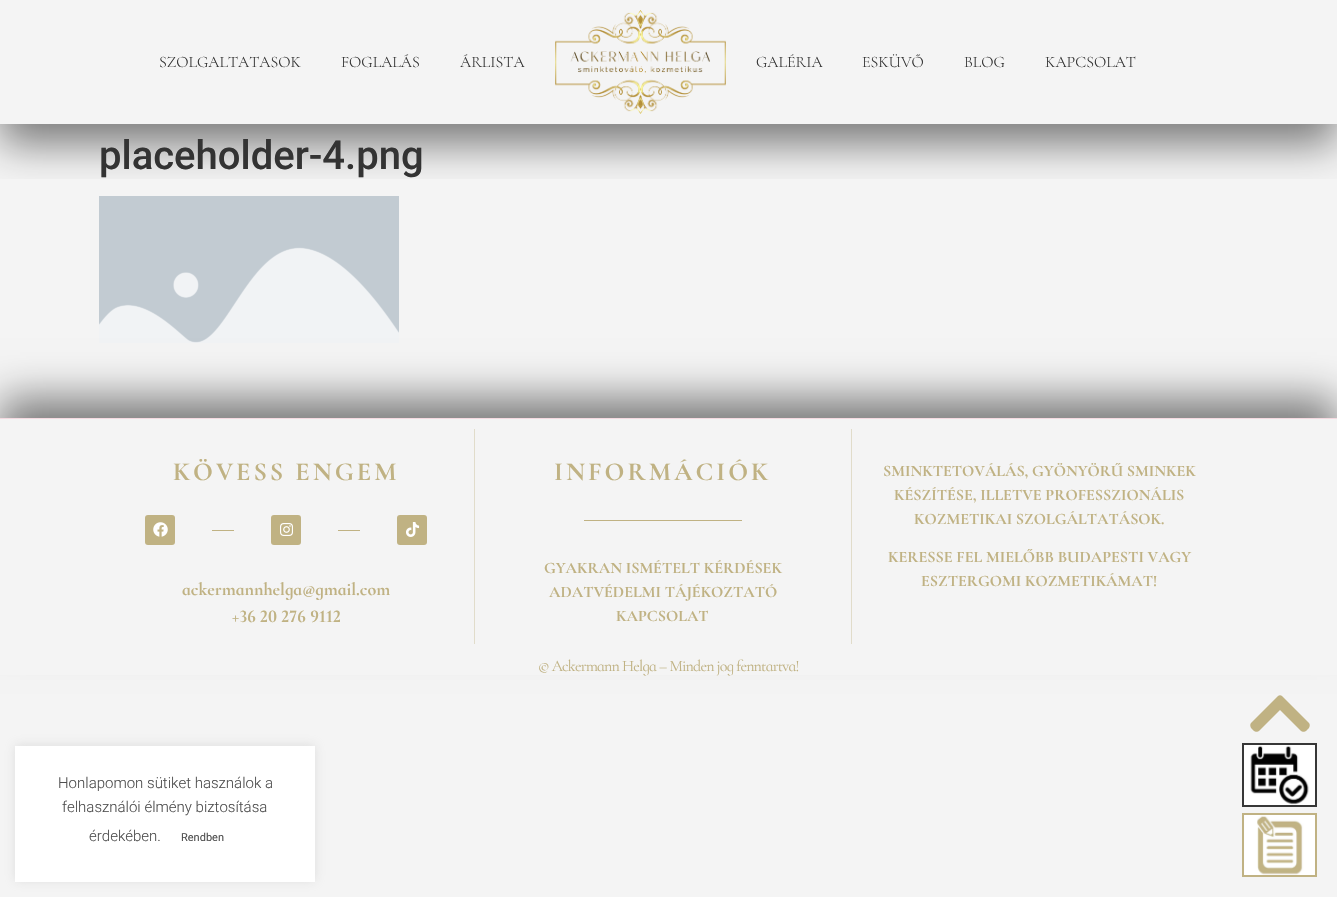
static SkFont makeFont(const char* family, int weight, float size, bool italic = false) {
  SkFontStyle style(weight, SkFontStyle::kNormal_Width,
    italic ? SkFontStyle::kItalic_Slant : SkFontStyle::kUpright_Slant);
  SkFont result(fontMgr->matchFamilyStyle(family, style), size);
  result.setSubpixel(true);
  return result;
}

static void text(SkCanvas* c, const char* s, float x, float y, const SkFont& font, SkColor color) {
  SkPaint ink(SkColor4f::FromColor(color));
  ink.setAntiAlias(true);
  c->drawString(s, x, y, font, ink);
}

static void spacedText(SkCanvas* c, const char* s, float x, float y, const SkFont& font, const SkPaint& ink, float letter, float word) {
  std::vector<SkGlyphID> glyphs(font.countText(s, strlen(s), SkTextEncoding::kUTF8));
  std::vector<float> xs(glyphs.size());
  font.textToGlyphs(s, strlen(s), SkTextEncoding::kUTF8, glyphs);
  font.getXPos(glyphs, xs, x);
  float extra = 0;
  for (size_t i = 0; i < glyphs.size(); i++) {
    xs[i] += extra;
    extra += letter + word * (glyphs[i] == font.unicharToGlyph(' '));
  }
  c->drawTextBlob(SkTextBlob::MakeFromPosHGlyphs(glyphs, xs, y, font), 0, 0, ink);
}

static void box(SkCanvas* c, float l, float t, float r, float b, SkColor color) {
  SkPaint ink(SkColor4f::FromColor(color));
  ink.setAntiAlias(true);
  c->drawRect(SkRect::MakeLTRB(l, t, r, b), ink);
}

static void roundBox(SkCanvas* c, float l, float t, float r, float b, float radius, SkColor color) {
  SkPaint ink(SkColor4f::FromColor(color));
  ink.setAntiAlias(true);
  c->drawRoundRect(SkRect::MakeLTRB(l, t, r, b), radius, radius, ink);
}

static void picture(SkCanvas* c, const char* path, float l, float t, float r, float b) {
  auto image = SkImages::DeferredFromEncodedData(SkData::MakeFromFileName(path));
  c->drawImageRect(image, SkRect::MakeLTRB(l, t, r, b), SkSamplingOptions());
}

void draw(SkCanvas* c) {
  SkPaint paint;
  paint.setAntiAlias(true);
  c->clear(0xfff4f4f4);
  picture(c, "img_02.png", 99, 196, 399, 343);
  c->save();
  c->clipRect(SkRect::MakeLTRB(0, 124, 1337, 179));
  paint.setColor(0x80000000);
  paint.setMaskFilter(SkMaskFilter::MakeBlur(kNormal_SkBlurStyle, 20));
  c->drawRect(SkRect::MakeLTRB(0, 20, 1337, 144), paint);
  paint.setMaskFilter(nullptr);
  c->restore();
  SkFont face1 = makeFont("Cormorant Infant", 300, 16);
  text(c, "SZOLGALTATASOK", 159, 67, face1, 0xff333333);
  text(c, "FOGLALÁS", 341, 67, face1, 0xff333333);
  text(c, "ÁRLISTA", 460, 67, face1, 0xff333333);
  picture(c, "img_01.png", 555, 10, 726, 114);
  text(c, "GALÉRIA", 756, 67, face1, 0xff333333);
  text(c, "ESKÜVŐ", 862, 67, face1, 0xff333333);
  text(c, "BLOG", 964, 67, face1, 0xff333333);
  text(c, "KAPCSOLAT", 1045, 67, face1, 0xff333333);
  SkFont face2 = makeFont("Roboto", 500, 40);
  text(c, "placeholder-4.png", 99, 169, face2, 0xff333333);
  paint.setMaskFilter(SkMaskFilter::MakeBlur(kNormal_SkBlurStyle, 20));
  c->drawRect(SkRect::MakeLTRB(0, 398, 1337, 634), paint);
  paint.setMaskFilter(nullptr);
  box(c, 0, 419, 1337, 675, 0xfff4f4f4);
  box(c, 0, 418, 1337, 419, 0xfff5dae1);
  box(c, 474, 429, 475, 644, 0xffe1dcca);
  SkFont face3 = makeFont("Cormorant Infant", 700, 26);
  paint.setColor(0xffc0b283);
  spacedText(c, "KÖVESS ENGEM", 173, 480, face3, paint, 3, 0);
  roundBox(c, 145, 515, 175, 545, 3, 0xffc0b283);
  picture(c, "img_03.png", 153, 522, 168, 537);
  box(c, 212, 530, 234, 531, 0xffc0b283);
  roundBox(c, 271, 515, 301, 545, 3, 0xffc0b283);
  picture(c, "img_04.png", 280, 523, 293, 536);
  box(c, 338, 530, 360, 531, 0xffc0b283);
  roundBox(c, 397, 515, 427, 545, 3, 0xffc0b283);
  picture(c, "img_05.png", 406, 522, 420, 537);
  SkFont face4 = makeFont("Cormorant Infant", 700, 18);
  text(c, "ackermannhelga@gmail.com", 182, 595, face4, 0xffc0b283);
  text(c, "+36 20 276 9112", 232, 622, face4, 0xffc0b283);
  spacedText(c, "INFORMÁCIÓK", 554, 480, face3, paint, 3, 0);
  box(c, 584, 520, 742, 521, 0xffc0b283);
  SkFont face5 = makeFont("Cormorant Infant", 700, 16);
  text(c, "GYAKRAN ISMÉTELT KÉRDÉSEK", 544, 573, face5, 0xffc0b283);
  text(c, "ADATVÉDELMI TÁJÉKOZTATÓ", 549, 597, face5, 0xffc0b283);
  text(c, "KAPCSOLAT", 616, 621, face5, 0xffc0b283);
  box(c, 851, 429, 852, 644, 0xffe1dcca);
  text(c, "SMINKTETOVÁLÁS, GYÖNYÖRŰ SMINKEK", 883, 476, face5, 0xffc0b283);
  text(c, "KÉSZÍTÉSE, ILLETVE PROFESSZIONÁLIS", 894, 500, face5, 0xffc0b283);
  text(c, "KOZMETIKAI SZOLGÁLTATÁSOK.", 914, 524, face5, 0xffc0b283);
  text(c, "KERESSE FEL MIELŐBB BUDAPESTI VAGY", 888, 562, face5, 0xffc0b283);
  text(c, "ESZTERGOMI KOZMETIKÁMAT!", 921, 586, face5, 0xffc0b283);
  SkFont face6 = makeFont("Cormorant Infant", 400, 16);
  spacedText(c, "© Ackermann Helga – Minden jog fenntartva!", 538, 671, face6, paint, -0.8f, 0);
  c->drawPath(SkPathBuilder().moveTo(1282, 696).lineTo(1309, 723).cubicTo(1310, 724, 1310, 726, 1309, 728).lineTo(1306, 731).cubicTo(1305, 732, 1302, 732, 1301, 731).lineTo(1280, 710).lineTo(1259, 731).cubicTo(1258, 732, 1255, 732, 1254, 731).lineTo(1251, 728).cubicTo(1250, 726, 1250, 724, 1251, 723).lineTo(1278, 696).cubicTo(1279, 695, 1281, 695, 1282, 696).close().detach(), paint);
  picture(c, "img_06.png", 1244, 745, 1315, 805);
  paint.setStyle(SkPaint::kStroke_Style);
  paint.setStrokeWidth(2);
  paint.setColor(0xff373737);
  c->drawRect(SkRect::MakeLTRB(1243, 744, 1316, 806), paint);
  picture(c, "img_07.png", 1244, 815, 1315, 875);
  paint.setColor(0xffc0b283);
  c->drawRect(SkRect::MakeLTRB(1243, 814, 1316, 876), paint);
  paint.setStyle(SkPaint::kFill_Style);
  paint.setColor(0x4dacabab);
  paint.setMaskFilter(SkMaskFilter::MakeBlur(kNormal_SkBlurStyle, 5));
  c->drawRect(SkRect::MakeLTRB(15, 745, 315, 881), paint);
  paint.setMaskFilter(nullptr);
  box(c, 15, 746, 315, 882, 0xffffffff);
  SkFont face7 = makeFont("Roboto", 300, 15);
  text(c, "Honlapomon sütiket használok a", 58, 788, face7, 0xff4f4f4f);
  text(c, "felhasználói élmény biztosítása", 62, 812, face7, 0xff4f4f4f);
  text(c, "érdekében.", 89, 841, face7, 0xff4f4f4f);
  SkFont face8 = makeFont("Roboto", 400, 11);
  text(c, "Rendben", 181, 841, face8, 0xff4f4f4f);
}
